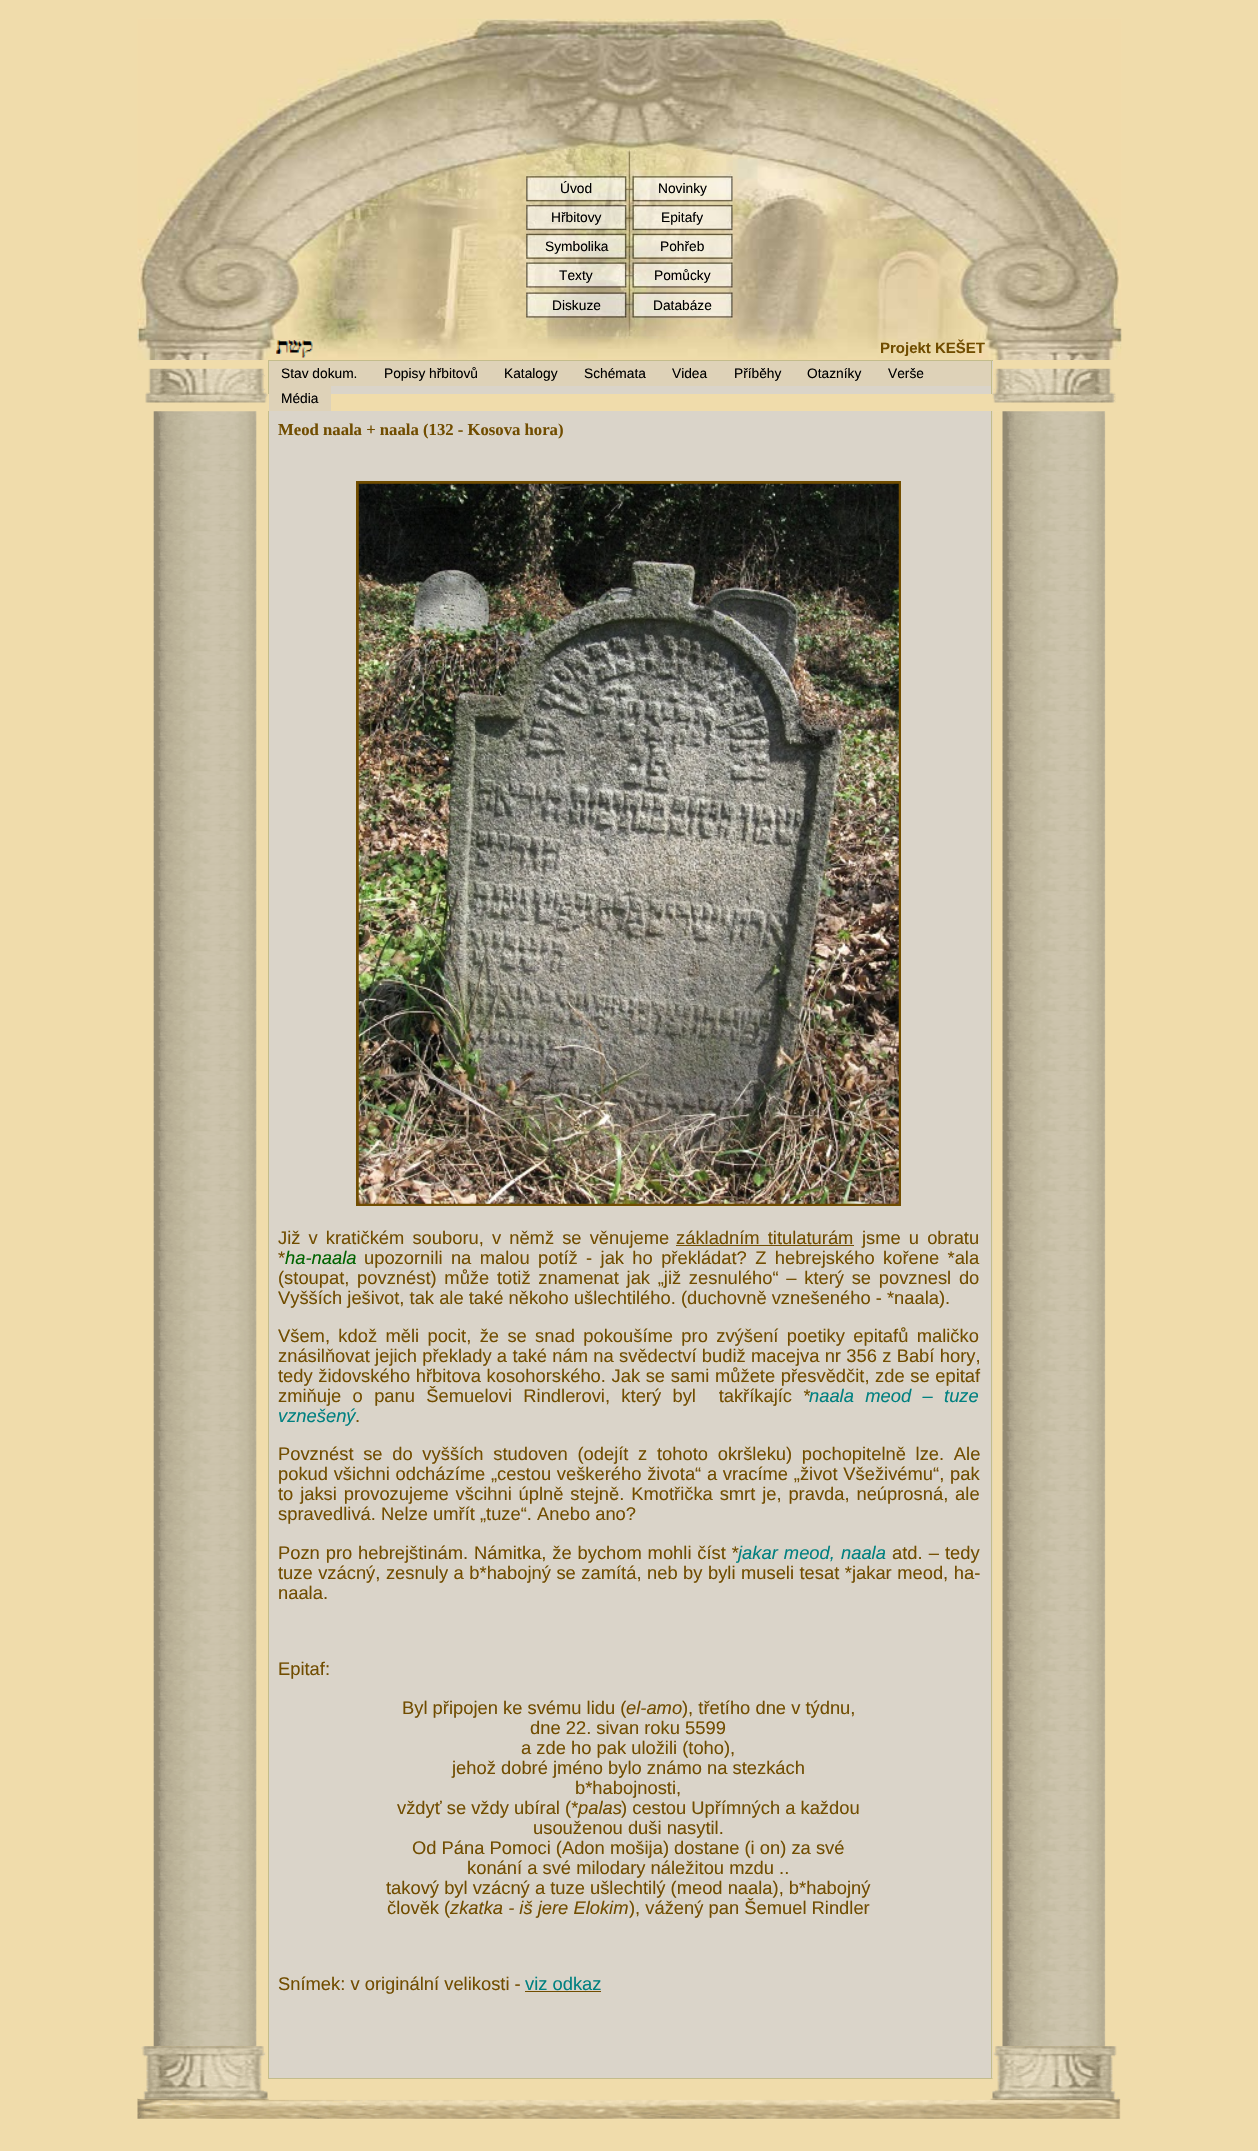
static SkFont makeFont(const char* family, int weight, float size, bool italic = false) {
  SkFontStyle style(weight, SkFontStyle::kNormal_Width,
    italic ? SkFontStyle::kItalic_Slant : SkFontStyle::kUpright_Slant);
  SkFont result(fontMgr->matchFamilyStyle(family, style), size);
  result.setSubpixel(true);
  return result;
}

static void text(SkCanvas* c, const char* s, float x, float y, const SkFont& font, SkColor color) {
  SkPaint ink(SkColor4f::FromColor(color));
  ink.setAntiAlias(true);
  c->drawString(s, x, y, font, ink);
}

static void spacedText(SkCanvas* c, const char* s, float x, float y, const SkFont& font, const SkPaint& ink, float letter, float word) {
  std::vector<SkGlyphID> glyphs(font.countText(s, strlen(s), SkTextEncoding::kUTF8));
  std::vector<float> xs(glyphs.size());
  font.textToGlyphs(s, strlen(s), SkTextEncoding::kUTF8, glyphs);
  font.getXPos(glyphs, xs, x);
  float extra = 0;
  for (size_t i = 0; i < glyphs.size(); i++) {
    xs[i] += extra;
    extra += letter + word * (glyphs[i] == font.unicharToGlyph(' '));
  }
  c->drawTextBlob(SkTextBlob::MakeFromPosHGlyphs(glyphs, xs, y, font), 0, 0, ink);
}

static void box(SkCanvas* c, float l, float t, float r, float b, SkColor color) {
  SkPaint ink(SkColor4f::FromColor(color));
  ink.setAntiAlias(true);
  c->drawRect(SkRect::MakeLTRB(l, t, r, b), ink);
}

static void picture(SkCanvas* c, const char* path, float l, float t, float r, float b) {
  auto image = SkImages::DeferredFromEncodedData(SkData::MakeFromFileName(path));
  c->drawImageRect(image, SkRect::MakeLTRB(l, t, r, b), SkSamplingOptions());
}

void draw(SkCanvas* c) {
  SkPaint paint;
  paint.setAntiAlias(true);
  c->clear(0xfff0dcab);
  picture(c, "img_01.png", 137, 18, 1122, 360);
  picture(c, "img_02.png", 526, 150, 733, 337);
  SkFont face1 = makeFont("Liberation Sans", 400, 13.75f);
  text(c, "Úvod", 560, 193, face1, 0xff000000);
  text(c, "Novinky", 658, 193, face1, 0xff000000);
  text(c, "Hřbitovy", 551, 222, face1, 0xff000000);
  text(c, "Epitafy", 661, 222, face1, 0xff000000);
  text(c, "Symbolika", 545, 251, face1, 0xff000000);
  text(c, "Pohřeb", 660, 251, face1, 0xff000000);
  text(c, "Texty", 559, 280, face1, 0xff000000);
  text(c, "Pomůcky", 654, 280, face1, 0xff000000);
  text(c, "Diskuze", 552, 310, face1, 0xff000000);
  text(c, "Databáze", 653, 310, face1, 0xff000000);
  picture(c, "img_03.png", 276, 340, 313, 358);
  SkFont face2 = makeFont("Liberation Sans", 700, 15);
  text(c, "Projekt KEŠET", 880, 353, face2, 0xff714d00);
  picture(c, "img_04.png", 145, 368, 268, 403);
  box(c, 331, 361, 993, 394, 0xffdad4c9);
  box(c, 268, 360, 993, 361, 0xffc3bc8b);
  box(c, 991, 360, 992, 394, 0xffc3bc8b);
  box(c, 268, 360, 269, 394, 0xffc3bc8b);
  box(c, 269, 361, 991, 386, 0xffded2b8);
  text(c, "Stav dokum.", 281, 378, face1, 0xff000000);
  text(c, "Popisy hřbitovů", 384, 378, face1, 0xff000000);
  text(c, "Katalogy", 504, 378, face1, 0xff000000);
  text(c, "Schémata", 584, 378, face1, 0xff000000);
  text(c, "Videa", 672, 378, face1, 0xff000000);
  text(c, "Příběhy", 734, 378, face1, 0xff000000);
  text(c, "Otazníky", 807, 378, face1, 0xff000000);
  text(c, "Verše", 888, 378, face1, 0xff000000);
  box(c, 269, 386, 331, 411, 0xffded2b8);
  text(c, "Média", 281, 403, face1, 0xff000000);
  picture(c, "img_05.png", 992, 368, 1116, 403);
  picture(c, "img_06.png", 153, 411, 257, 2047);
  box(c, 269, 411, 993, 2046, 0xffdad4c9);
  box(c, 991, 411, 992, 2046, 0xffc3bc8b);
  box(c, 268, 411, 269, 2046, 0xffc3bc8b);
  SkFont face3 = makeFont("Liberation Serif", 700, 16.7f);
  text(c, "Meod naala + naala (132 - Kosova hora)", 278, 435, face3, 0xff714d00);
  paint.setStyle(SkPaint::kStroke_Style);
  paint.setStrokeWidth(3);
  paint.setColor(0xff714d00);
  c->drawRect(SkRect::MakeLTRB(357.5f, 482.5f, 899.5f, 1204.5f), paint);
  picture(c, "img_07.png", 358, 483, 899, 1204);
  SkFont face4 = makeFont("Liberation Sans", 400, 18.35f);
  paint.setStyle(SkPaint::kFill_Style);
  spacedText(c, "Již v kratičkém souboru, v němž se věnujeme", 278, 1244, face4, paint, 0, 3);
  spacedText(c, "základním titulaturám", 676, 1244, face4, paint, 0, 3);
  box(c, 676, 1245, 854, 1246, 0xff714d00);
  spacedText(c, "jsme u obratu", 862, 1244, face4, paint, 0, 3);
  text(c, "*", 278, 1264, face4, 0xff714d00);
  SkFont face5 = makeFont("Liberation Sans", 400, 18.35f, true);
  text(c, "ha-naala", 285, 1264, face5, 0xff006400);
  spacedText(c, "upozornili na malou potíž - jak ho překládat? Z hebrejského kořene *ala", 364, 1264, face4, paint, 0, 3.25f);
  spacedText(c, "(stoupat, povznést) může totiž znamenat jak „již zesnulého“ – který se povznesl do", 278, 1284, face4, paint, 0, 2.6f);
  text(c, "Vyšších ješivot, tak ale také někoho ušlechtilého. (duchovně vznešeného - *naala).", 278, 1304, face4, 0xff714d00);
  spacedText(c, "Všem, kdož měli pocit, že se snad pokoušíme pro zvýšení poetiky epitafů maličko", 278, 1342, face4, paint, 0, 3.25f);
  spacedText(c, "znásilňovat jejich překlady a také nám na svědectví budiž macejva nr 356 z Babí hory,", 278, 1362, face4, paint, 0, 0.2f);
  spacedText(c, "tedy židovského hřbitova kosohorského. Jak se sami můžete přesvědčit, zde se epitaf", 278, 1382, face4, paint, 0, 0.5f);
  spacedText(c, "zmiňuje o panu Šemuelovi Rindlerovi, který byl  takříkajíc *", 278, 1402, face4, paint, 0, 6.25f);
  paint.setColor(0xff008080);
  spacedText(c, "naala meod – tuze", 809, 1402, face5, paint, 0, 6.25f);
  text(c, "vznešený", 278, 1422, face5, 0xff008080);
  text(c, ".", 355, 1422, face4, 0xff714d00);
  paint.setColor(0xff714d00);
  spacedText(c, "Povznést se do vyšších studoven (odejít z tohoto okršleku) pochopitelně lze. Ale", 278, 1460, face4, paint, 0, 4.6f);
  spacedText(c, "pokud všichni odcházíme „cestou veškerého života“ a vracíme „život Všeživému“, pak", 278, 1480, face4, paint, 0, 0.6f);
  spacedText(c, "to jaksi provozujeme všcihni úplně stejně. Kmotřička smrt je, pravda, neúprosná, ale", 278, 1500, face4, paint, 0, 1.75f);
  text(c, "spravedlivá. Nelze umřít „tuze“. Anebo ano?", 278, 1520, face4, 0xff714d00);
  spacedText(c, "Pozn pro hebrejštinám. Námitka, že bychom mohli číst *", 278, 1559, face4, paint, 0, 0.75f);
  paint.setColor(0xff008080);
  spacedText(c, "jakar meod, naala", 738, 1559, face5, paint, 0, 1);
  paint.setColor(0xff714d00);
  spacedText(c, "atd. – tedy", 892, 1559, face4, paint, 0, 1);
  spacedText(c, "tuze vzácný, zesnuly a b*habojný se zamítá, neb by byli museli tesat *jakar meod, ha-", 278, 1579, face4, paint, 0, 0.4f);
  text(c, "naala.", 278, 1599, face4, 0xff714d00);
  text(c, "Epitaf:", 278, 1675, face4, 0xff714d00);
  text(c, "Byl připojen ke svému lidu (", 402, 1714, face4, 0xff714d00);
  text(c, "el-amo", 626, 1714, face5, 0xff714d00);
  text(c, "), třetího dne v týdnu,", 682, 1714, face4, 0xff714d00);
  text(c, "dne 22. sivan roku 5599", 530, 1734, face4, 0xff714d00);
  text(c, "a zde ho pak uložili (toho),", 521, 1754, face4, 0xff714d00);
  text(c, "jehož dobré jméno bylo známo na stezkách", 452, 1774, face4, 0xff714d00);
  text(c, "b*habojnosti,", 575, 1794, face4, 0xff714d00);
  text(c, "vždyť se vždy ubíral (*", 397, 1814, face4, 0xff714d00);
  text(c, "palas", 578, 1814, face5, 0xff714d00);
  text(c, ") cestou Upřímných a každou", 621, 1814, face4, 0xff714d00);
  text(c, "usouženou duši nasytil.", 533, 1834, face4, 0xff714d00);
  text(c, "Od Pána Pomoci (Adon mošija) dostane (i on) za své", 412, 1854, face4, 0xff714d00);
  text(c, "konání a své milodary náležitou mzdu ..", 467, 1874, face4, 0xff714d00);
  text(c, "takový byl vzácný a tuze ušlechtilý (meod naala), b*habojný", 386, 1894, face4, 0xff714d00);
  text(c, "člověk (", 387, 1914, face4, 0xff714d00);
  text(c, "zkatka - iš jere Elokim", 450, 1914, face5, 0xff714d00);
  text(c, "), vážený pan Šemuel Rindler", 629, 1914, face4, 0xff714d00);
  text(c, "Snímek: v originální velikosti -", 278, 1990, face4, 0xff714d00);
  text(c, "viz odkaz", 525, 1990, face4, 0xff008080);
  box(c, 525, 1991, 601, 1992, 0xff714d00);
  picture(c, "img_08.png", 992, 411, 1106, 2047);
  picture(c, "img_11.png", 137, 2098, 1121, 2119);
  picture(c, "img_09.png", 138, 2046, 268, 2099);
  box(c, 269, 2046, 993, 2078, 0xffdad4c9);
  box(c, 991, 2046, 992, 2079, 0xffc3bc8b);
  box(c, 268, 2078, 993, 2079, 0xffc3bc8b);
  box(c, 268, 2046, 269, 2079, 0xffc3bc8b);
  picture(c, "img_10.png", 992, 2046, 1120, 2099);
}
